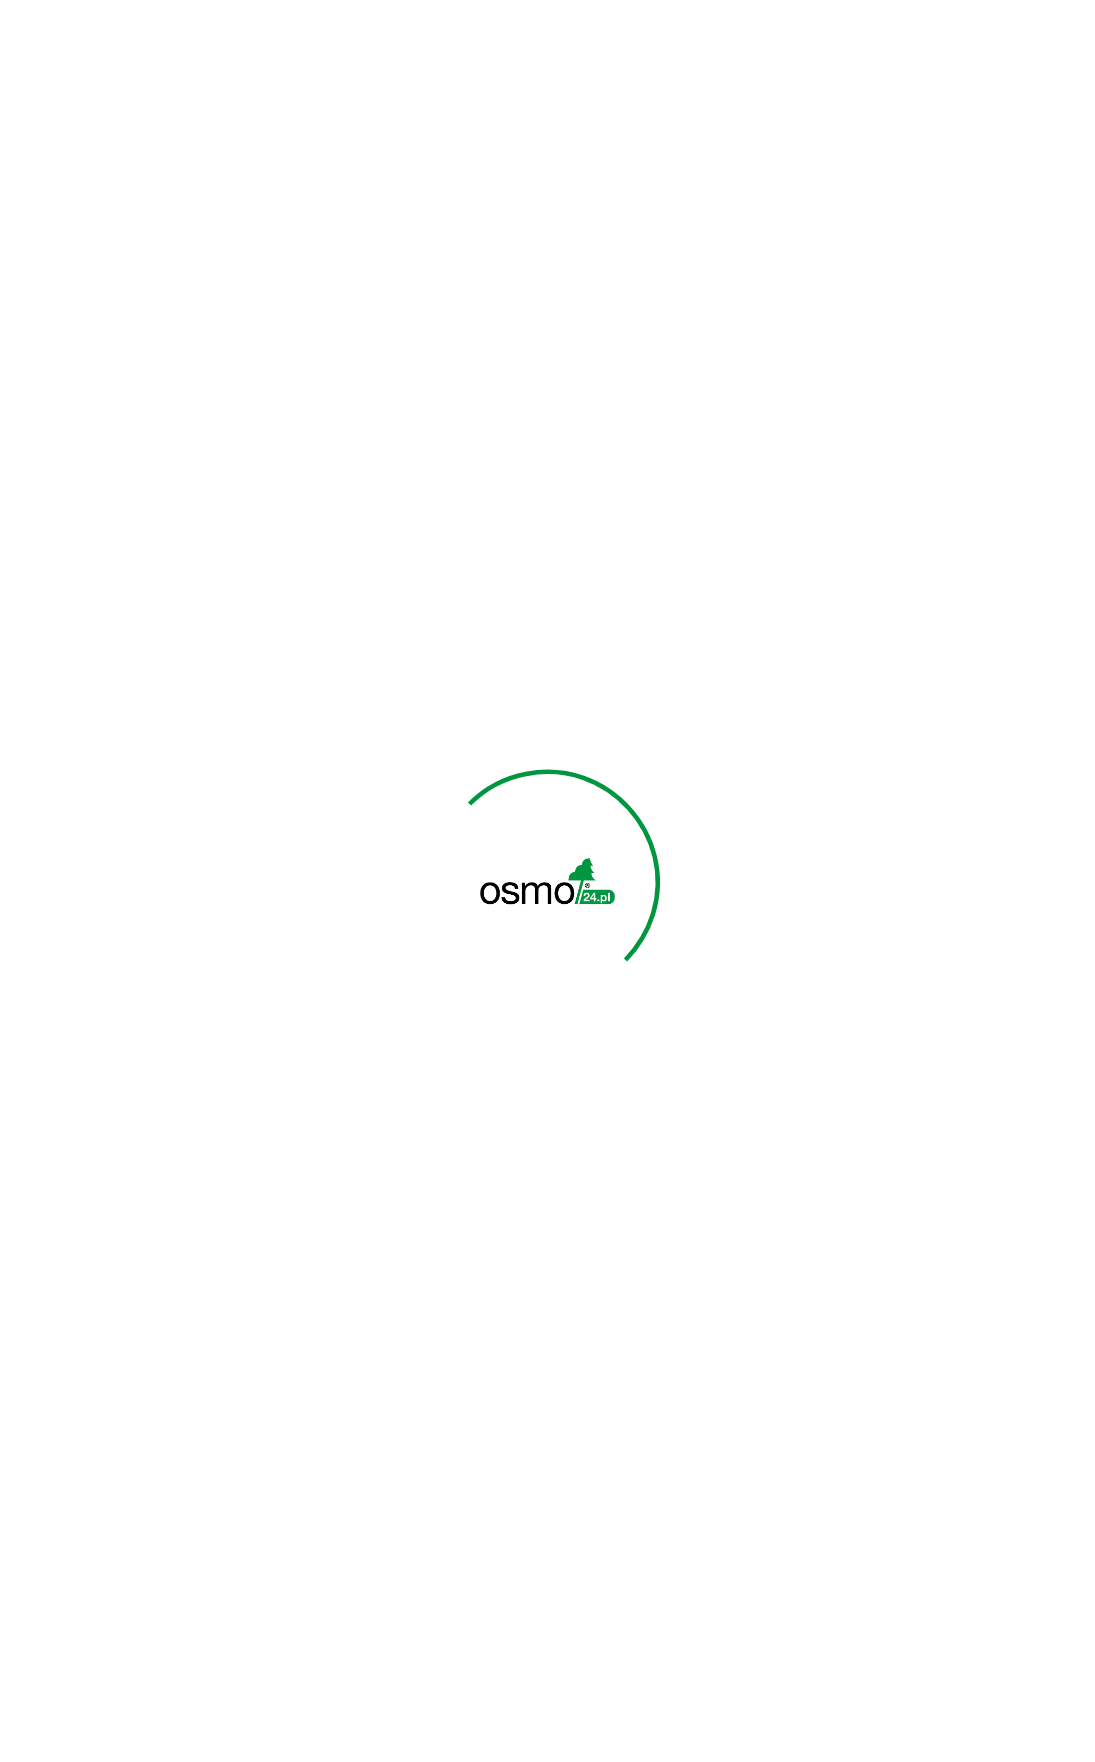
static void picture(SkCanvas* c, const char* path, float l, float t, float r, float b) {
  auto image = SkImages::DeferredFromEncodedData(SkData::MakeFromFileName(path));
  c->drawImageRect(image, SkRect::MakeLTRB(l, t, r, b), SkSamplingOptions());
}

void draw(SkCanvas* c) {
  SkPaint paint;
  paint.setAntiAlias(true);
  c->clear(0xffffffff);
  paint.setStyle(SkPaint::kStroke_Style);
  paint.setStrokeWidth(4.5f);
  paint.setColor(0xff009640);
  c->drawPath(SkPathBuilder().moveTo(469.5f, 804).cubicTo(485, 788.5f, 504.5f, 778, 526, 774).cubicTo(607, 757.5f, 677, 835, 653, 914).cubicTo(647.5f, 931.5f, 638, 947, 625.5f, 960).detach(), paint);
  picture(c, "img_01.png", 480, 858, 615, 905);
}
